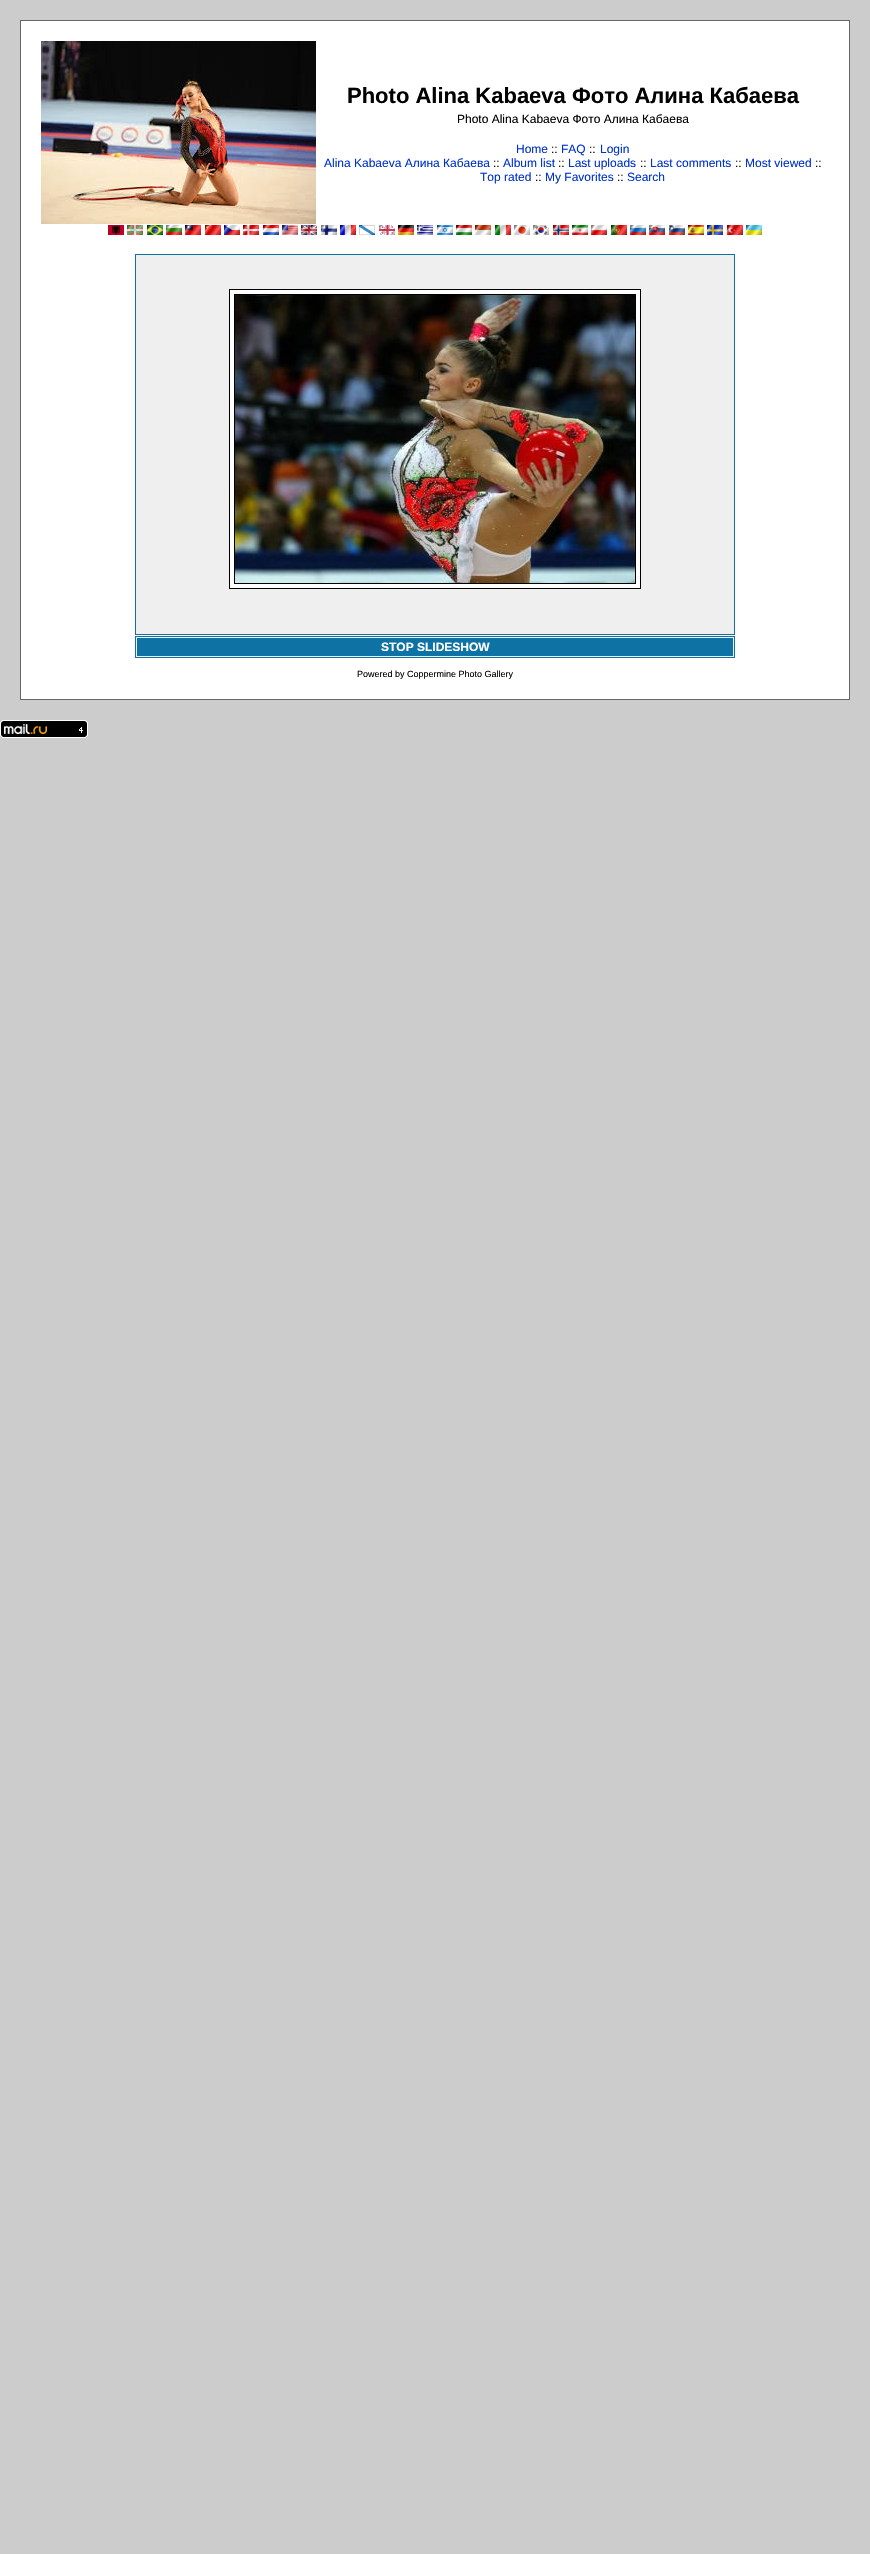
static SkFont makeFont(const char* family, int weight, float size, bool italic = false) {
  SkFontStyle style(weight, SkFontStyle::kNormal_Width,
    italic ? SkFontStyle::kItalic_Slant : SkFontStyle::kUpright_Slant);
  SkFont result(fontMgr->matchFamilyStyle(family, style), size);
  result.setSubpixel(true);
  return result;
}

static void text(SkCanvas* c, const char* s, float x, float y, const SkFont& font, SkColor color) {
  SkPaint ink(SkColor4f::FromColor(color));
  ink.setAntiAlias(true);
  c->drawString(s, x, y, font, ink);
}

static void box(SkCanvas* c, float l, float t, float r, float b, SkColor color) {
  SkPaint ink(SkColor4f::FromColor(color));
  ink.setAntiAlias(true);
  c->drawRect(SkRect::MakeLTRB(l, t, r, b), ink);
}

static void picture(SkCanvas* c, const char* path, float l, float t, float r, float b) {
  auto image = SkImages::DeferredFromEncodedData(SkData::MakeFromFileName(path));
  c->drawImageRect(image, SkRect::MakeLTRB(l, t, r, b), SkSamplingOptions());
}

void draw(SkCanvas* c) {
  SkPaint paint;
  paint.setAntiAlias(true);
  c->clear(0xffcccccc);
  paint.setColor(0xffffffff);
  c->drawRect(SkRect::MakeLTRB(20.5f, 20.5f, 849.5f, 699.5f), paint);
  paint.setStyle(SkPaint::kStroke_Style);
  paint.setStrokeWidth(1);
  paint.setColor(0xff666666);
  c->drawRect(SkRect::MakeLTRB(20.5f, 20.5f, 849.5f, 699.5f), paint);
  picture(c, "img_01.png", 41, 41, 316, 224);
  SkFont face1 = makeFont("Liberation Sans", 700, 22);
  text(c, "Photo Alina Kabaeva Фото Алина Кабаева", 347, 103, face1, 0xff000000);
  SkFont face2 = makeFont("Liberation Sans", 400, 12);
  text(c, "Photo Alina Kabaeva Фото Алина Кабаева", 457, 123, face2, 0xff000000);
  text(c, "Home", 516, 153, face2, 0xff0033cc);
  text(c, "::", 551, 153, face2, 0xff000000);
  text(c, "FAQ", 561, 153, face2, 0xff0033cc);
  text(c, "::", 589, 153, face2, 0xff000000);
  text(c, "Login", 600, 153, face2, 0xff0033cc);
  text(c, "Alina Kabaeva Алина Кабаева", 324, 167, face2, 0xff0033cc);
  text(c, "::", 493, 167, face2, 0xff000000);
  text(c, "Album list", 503, 167, face2, 0xff0033cc);
  text(c, "::", 558, 167, face2, 0xff000000);
  text(c, "Last uploads", 568, 167, face2, 0xff0033cc);
  text(c, "::", 640, 167, face2, 0xff000000);
  text(c, "Last comments", 650, 167, face2, 0xff0033cc);
  text(c, "::", 735, 167, face2, 0xff000000);
  text(c, "Most viewed", 745, 167, face2, 0xff0033cc);
  text(c, "::", 815, 167, face2, 0xff000000);
  text(c, "Top rated", 480, 181, face2, 0xff0033cc);
  text(c, "::", 535, 181, face2, 0xff000000);
  text(c, "My Favorites", 545, 181, face2, 0xff0033cc);
  text(c, "::", 617, 181, face2, 0xff000000);
  text(c, "Search", 627, 181, face2, 0xff0033cc);
  picture(c, "img_02.png", 108, 225, 124, 235);
  picture(c, "img_03.png", 127, 225, 143, 235);
  picture(c, "img_04.png", 147, 225, 163, 235);
  picture(c, "img_05.png", 166, 225, 182, 235);
  picture(c, "img_06.png", 185, 225, 201, 235);
  picture(c, "img_07.png", 205, 225, 221, 235);
  picture(c, "img_08.png", 224, 225, 240, 235);
  picture(c, "img_09.png", 243, 225, 259, 235);
  picture(c, "img_10.png", 263, 225, 279, 235);
  picture(c, "img_11.png", 282, 225, 298, 235);
  picture(c, "img_12.png", 301, 225, 317, 235);
  picture(c, "img_13.png", 321, 225, 337, 235);
  picture(c, "img_14.png", 340, 225, 356, 235);
  picture(c, "img_15.png", 359, 225, 375, 235);
  picture(c, "img_16.png", 379, 225, 395, 235);
  picture(c, "img_17.png", 398, 225, 414, 235);
  picture(c, "img_18.png", 417, 225, 433, 235);
  picture(c, "img_19.png", 437, 225, 453, 235);
  picture(c, "img_20.png", 456, 225, 472, 235);
  picture(c, "img_21.png", 475, 225, 491, 235);
  picture(c, "img_22.png", 495, 225, 511, 235);
  picture(c, "img_23.png", 514, 225, 530, 235);
  picture(c, "img_24.png", 533, 225, 549, 235);
  picture(c, "img_25.png", 553, 225, 569, 235);
  picture(c, "img_26.png", 572, 225, 588, 235);
  picture(c, "img_27.png", 591, 225, 607, 235);
  picture(c, "img_28.png", 611, 225, 627, 235);
  picture(c, "img_29.png", 630, 225, 646, 235);
  picture(c, "img_30.png", 649, 225, 665, 235);
  picture(c, "img_31.png", 669, 225, 685, 235);
  picture(c, "img_32.png", 688, 225, 704, 235);
  picture(c, "img_33.png", 707, 225, 723, 235);
  picture(c, "img_34.png", 727, 225, 743, 235);
  picture(c, "img_35.png", 746, 225, 762, 235);
  paint.setStyle(SkPaint::kFill_Style);
  paint.setColor(0xffefefef);
  c->drawRect(SkRect::MakeLTRB(135.5f, 254.5f, 734.5f, 634.5f), paint);
  paint.setStyle(SkPaint::kStroke_Style);
  paint.setColor(0xff0e72a4);
  c->drawRect(SkRect::MakeLTRB(135.5f, 254.5f, 734.5f, 634.5f), paint);
  paint.setStyle(SkPaint::kFill_Style);
  paint.setColor(0xffffffff);
  c->drawRect(SkRect::MakeLTRB(229.5f, 289.5f, 640.5f, 588.5f), paint);
  paint.setStyle(SkPaint::kStroke_Style);
  paint.setColor(0xff000000);
  c->drawRect(SkRect::MakeLTRB(229.5f, 289.5f, 640.5f, 588.5f), paint);
  c->drawRect(SkRect::MakeLTRB(234.5f, 294.5f, 635.5f, 583.5f), paint);
  picture(c, "img_36.png", 235, 295, 635, 583);
  paint.setStyle(SkPaint::kFill_Style);
  paint.setColor(0xffefefef);
  c->drawRect(SkRect::MakeLTRB(135.5f, 636.5f, 734.5f, 657.5f), paint);
  paint.setStyle(SkPaint::kStroke_Style);
  paint.setColor(0xff0e72a4);
  c->drawRect(SkRect::MakeLTRB(135.5f, 636.5f, 734.5f, 657.5f), paint);
  box(c, 137, 638, 733, 656, 0xff0e72a4);
  SkFont face3 = makeFont("Liberation Sans", 700, 12);
  text(c, "STOP SLIDESHOW", 381, 651, face3, 0xffffffff);
  SkFont face4 = makeFont("Liberation Sans", 400, 9);
  text(c, "Powered by Coppermine Photo Gallery", 357, 677, face4, 0xff000000);
  picture(c, "img_37.png", 0, 720, 88, 738);
}
